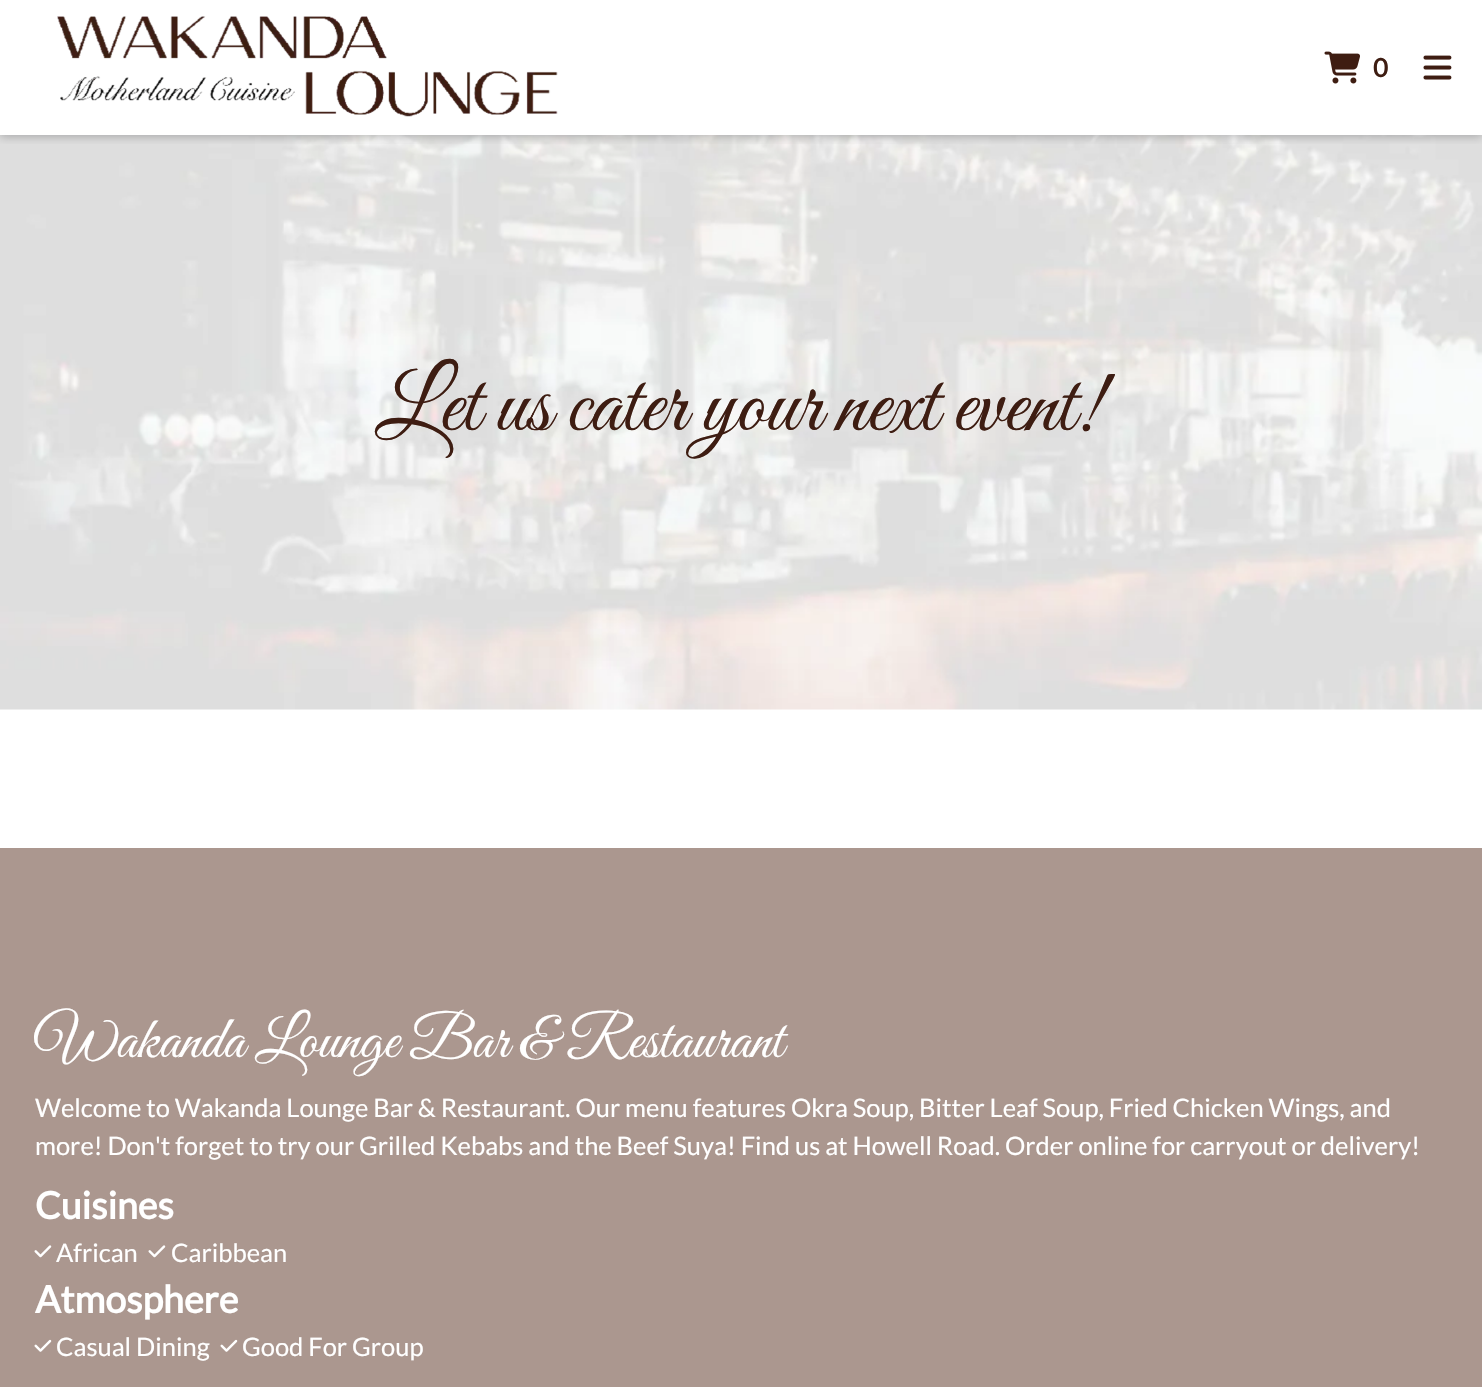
static SkFont makeFont(const char* family, int weight, float size, bool italic = false) {
  SkFontStyle style(weight, SkFontStyle::kNormal_Width,
    italic ? SkFontStyle::kItalic_Slant : SkFontStyle::kUpright_Slant);
  SkFont result(fontMgr->matchFamilyStyle(family, style), size);
  result.setSubpixel(true);
  return result;
}

static void text(SkCanvas* c, const char* s, float x, float y, const SkFont& font, SkColor color) {
  SkPaint ink(SkColor4f::FromColor(color));
  ink.setAntiAlias(true);
  c->drawString(s, x, y, font, ink);
}

static void spacedText(SkCanvas* c, const char* s, float x, float y, const SkFont& font, const SkPaint& ink, float letter, float word) {
  std::vector<SkGlyphID> glyphs(font.countText(s, strlen(s), SkTextEncoding::kUTF8));
  std::vector<float> xs(glyphs.size());
  font.textToGlyphs(s, strlen(s), SkTextEncoding::kUTF8, glyphs);
  font.getXPos(glyphs, xs, x);
  float extra = 0;
  for (size_t i = 0; i < glyphs.size(); i++) {
    xs[i] += extra;
    extra += letter + word * (glyphs[i] == font.unicharToGlyph(' '));
  }
  c->drawTextBlob(SkTextBlob::MakeFromPosHGlyphs(glyphs, xs, y, font), 0, 0, ink);
}

static void box(SkCanvas* c, float l, float t, float r, float b, SkColor color) {
  SkPaint ink(SkColor4f::FromColor(color));
  ink.setAntiAlias(true);
  c->drawRect(SkRect::MakeLTRB(l, t, r, b), ink);
}

static void picture(SkCanvas* c, const char* path, float l, float t, float r, float b) {
  auto image = SkImages::DeferredFromEncodedData(SkData::MakeFromFileName(path));
  c->drawImageRect(image, SkRect::MakeLTRB(l, t, r, b), SkSamplingOptions());
}

void draw(SkCanvas* c) {
  SkPaint paint;
  paint.setAntiAlias(true);
  c->clear(0xffffffff);
  picture(c, "img_04.png", 0, 135, 1482, 710);
  c->save();
  c->clipRect(SkRect::MakeLTRB(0, 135, 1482, 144));
  paint.setColor(0x47202124);
  paint.setMaskFilter(SkMaskFilter::MakeBlur(kNormal_SkBlurStyle, 4.5f));
  c->drawRect(SkRect::MakeLTRB(0, 2, 1482, 137), paint);
  paint.setMaskFilter(nullptr);
  c->restore();
  picture(c, "img_01.png", 57, 16, 558, 117);
  picture(c, "img_02.png", 1324, 51, 1360, 84);
  SkFont face1 = makeFont("Lato", 700, 25.5f);
  text(c, "0", 1373, 77, face1, 0xff3e1d12);
  picture(c, "img_03.png", 1423, 55, 1452, 80);
  SkFont face2 = makeFont("Great Vibes", 400, 90);
  paint.setColor(0xff3e1d12);
  spacedText(c, "Let us cater your next event!", 375, 430, face2, paint, 0, -0.5f);
  box(c, 0, 848, 1482, 1387, 0xffab978f);
  SkFont face3 = makeFont("Great Vibes", 400, 60);
  text(c, "Wakanda Lounge Bar & Restaurant", 35, 1057, face3, 0xffffffff);
  SkFont face4 = makeFont("Lato", 400, 25.5f);
  text(c, "Welcome to Wakanda Lounge Bar & Restaurant. Our menu features Okra Soup, Bitter Leaf Soup, Fried Chicken Wings, and", 35, 1117, face4, 0xffffffff);
  text(c, "more! Don't forget to try our Grilled Kebabs and the Beef Suya! Find us at Howell Road. Order online for carryout or delivery!", 35, 1155, face4, 0xffffffff);
  SkFont face5 = makeFont("Lato", 700, 37.5f);
  text(c, "Cuisines", 35, 1219, face5, 0xffffffff);
  picture(c, "img_05.png", 34, 1245, 52, 1258);
  text(c, "African", 56, 1262, face4, 0xffffffff);
  picture(c, "img_05.png", 148, 1245, 166, 1258);
  text(c, "Caribbean", 171, 1262, face4, 0xffffffff);
  text(c, "Atmosphere", 35, 1313, face5, 0xffffffff);
  picture(c, "img_06.png", 34, 1339, 52, 1352);
  text(c, "Casual Dining", 56, 1356, face4, 0xffffffff);
  picture(c, "img_06.png", 220, 1339, 238, 1352);
  text(c, "Good For Group", 242, 1356, face4, 0xffffffff);
}
